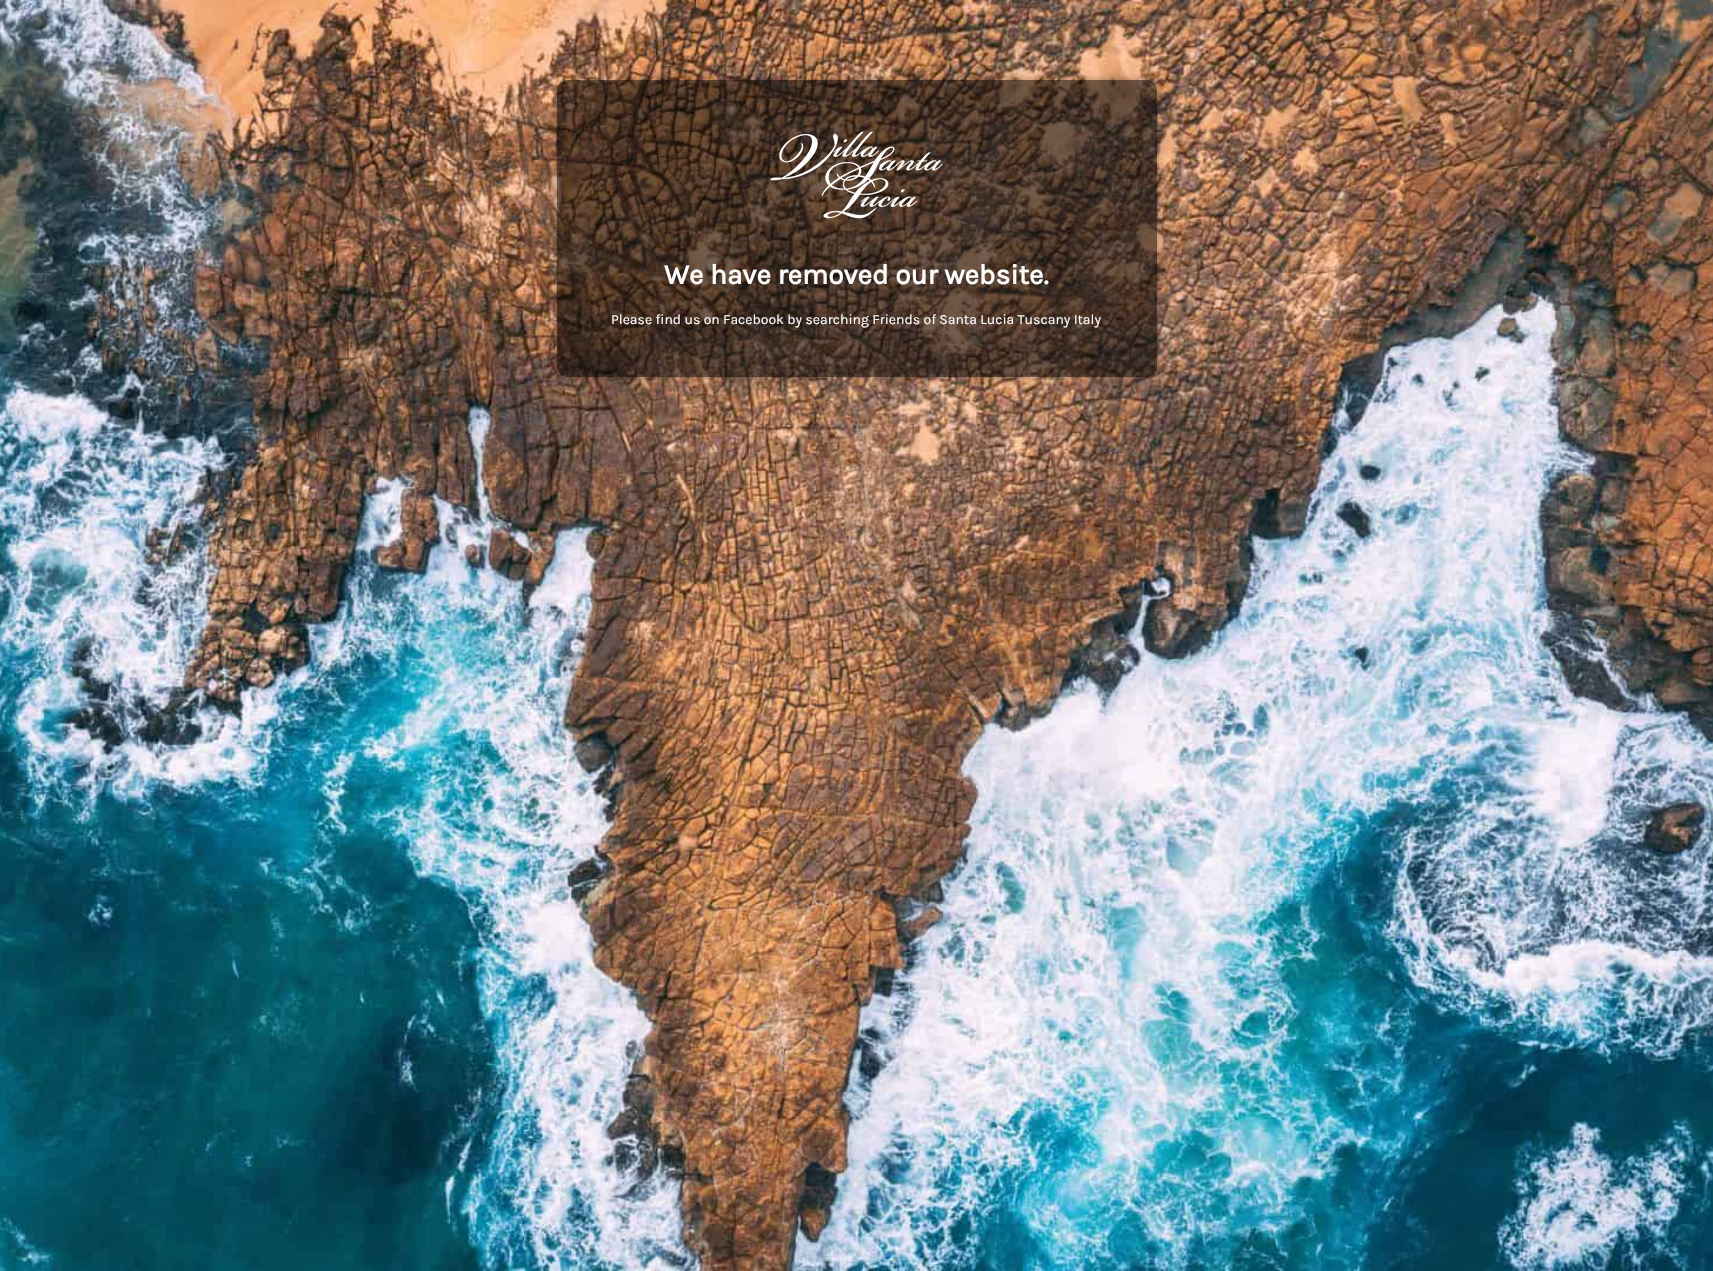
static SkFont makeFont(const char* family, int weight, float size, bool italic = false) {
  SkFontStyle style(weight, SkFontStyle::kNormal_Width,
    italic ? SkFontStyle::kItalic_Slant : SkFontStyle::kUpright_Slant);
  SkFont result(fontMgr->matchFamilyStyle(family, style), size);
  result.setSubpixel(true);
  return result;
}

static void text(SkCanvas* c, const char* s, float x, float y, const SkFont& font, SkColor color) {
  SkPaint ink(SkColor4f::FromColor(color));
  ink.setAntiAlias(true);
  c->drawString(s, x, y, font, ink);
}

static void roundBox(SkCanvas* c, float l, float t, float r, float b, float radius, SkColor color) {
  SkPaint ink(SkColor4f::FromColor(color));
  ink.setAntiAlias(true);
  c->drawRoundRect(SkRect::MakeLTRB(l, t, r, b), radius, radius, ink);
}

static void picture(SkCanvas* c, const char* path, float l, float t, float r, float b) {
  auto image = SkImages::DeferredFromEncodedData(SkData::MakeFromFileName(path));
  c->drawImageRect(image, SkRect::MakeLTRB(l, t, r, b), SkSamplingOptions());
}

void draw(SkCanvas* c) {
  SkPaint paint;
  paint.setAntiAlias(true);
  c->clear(0xffffffff);
  picture(c, "img_01.png", 0, 0, 1713, 1271);
  c->save();
  c->clipPath(SkPathBuilder(SkPathFillType::kEvenOdd).moveTo(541, 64).lineTo(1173, 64).lineTo(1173, 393).lineTo(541, 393).close().moveTo(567, 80).lineTo(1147, 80).cubicTo(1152.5f, 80, 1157, 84.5f, 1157, 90).lineTo(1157, 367).cubicTo(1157, 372.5f, 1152.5f, 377, 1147, 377).lineTo(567, 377).cubicTo(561.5f, 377, 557, 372.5f, 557, 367).lineTo(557, 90).cubicTo(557, 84.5f, 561.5f, 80, 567, 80).close().detach(), true);
  paint.setColor(0x54000000);
  paint.setMaskFilter(SkMaskFilter::MakeBlur(kNormal_SkBlurStyle, 5));
  c->drawRoundRect(SkRect::MakeLTRB(557, 80, 1157, 377), 10, 10, paint);
  paint.setMaskFilter(nullptr);
  c->restore();
  roundBox(c, 557, 80, 1157, 377, 10, 0x8c000000);
  picture(c, "img_02.png", 770, 131, 943, 219);
  SkFont face1 = makeFont("Karla", 700, 28);
  text(c, "We have removed our website.", 664, 284, face1, 0xffffffff);
  SkFont face2 = makeFont("Karla", 400, 14);
  text(c, "Please find us on Facebook by searching Friends of Santa Lucia Tuscany Italy", 611, 324, face2, 0xffffffff);
}
